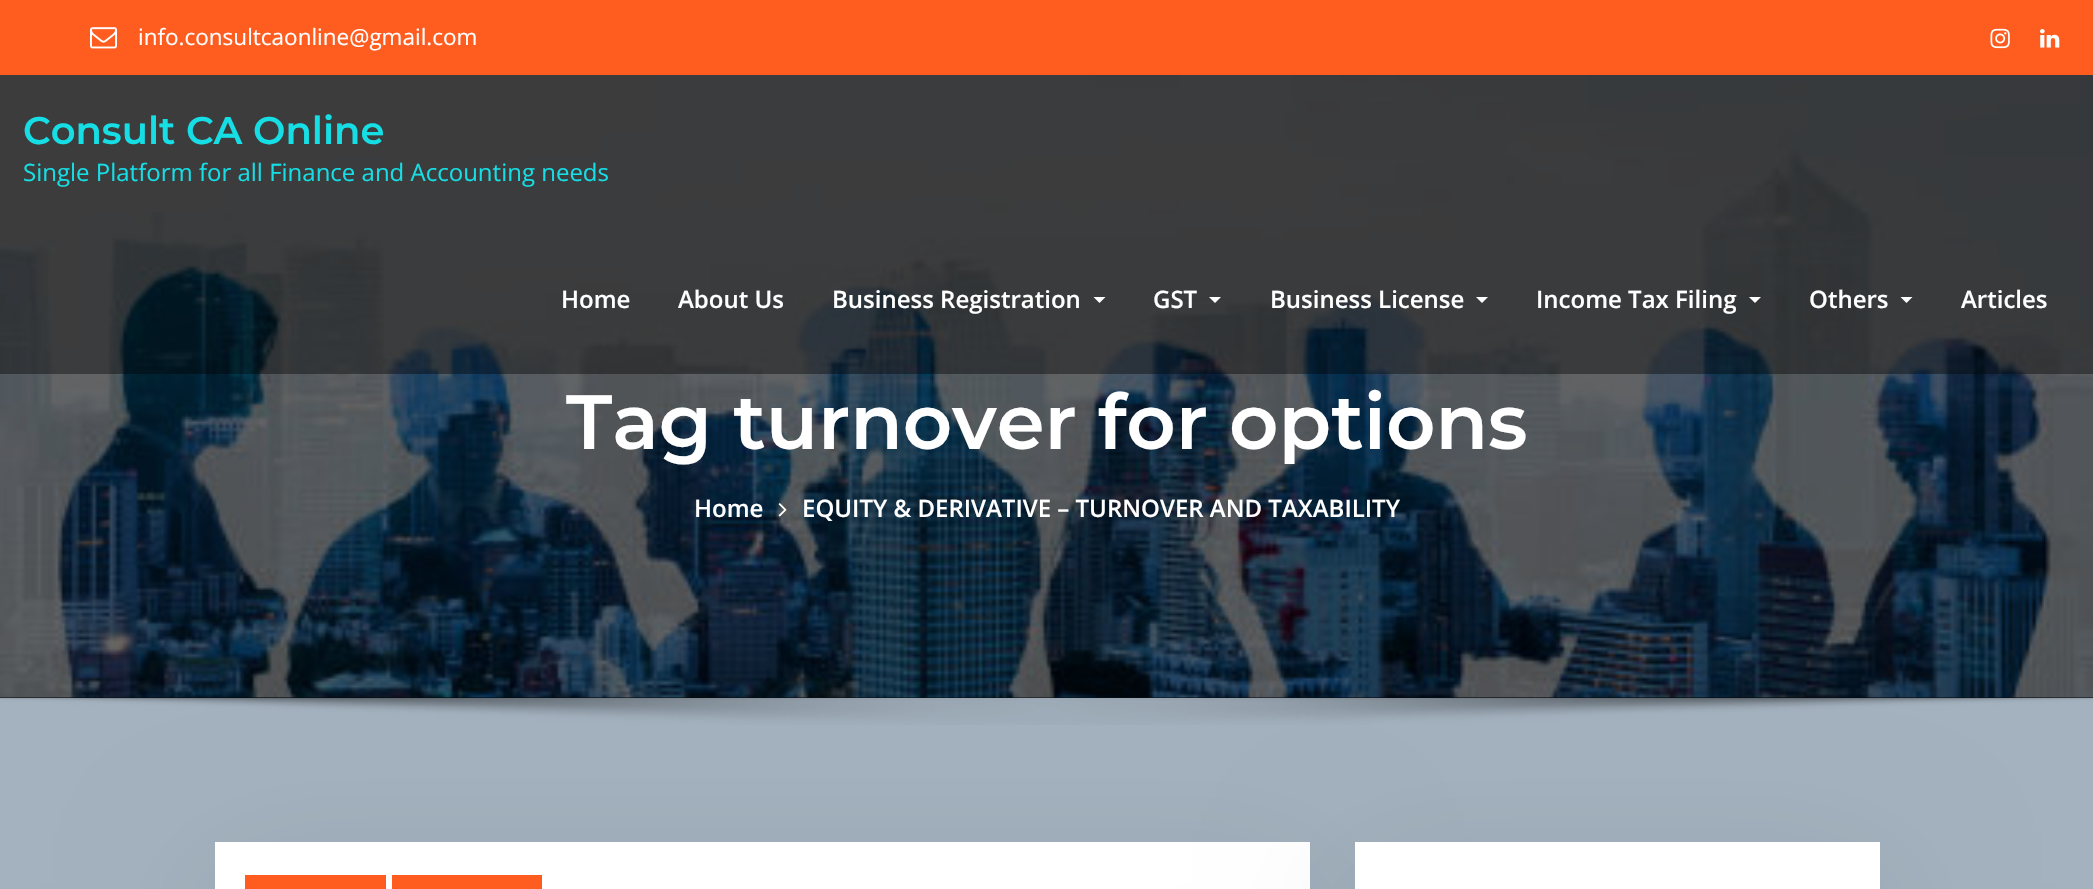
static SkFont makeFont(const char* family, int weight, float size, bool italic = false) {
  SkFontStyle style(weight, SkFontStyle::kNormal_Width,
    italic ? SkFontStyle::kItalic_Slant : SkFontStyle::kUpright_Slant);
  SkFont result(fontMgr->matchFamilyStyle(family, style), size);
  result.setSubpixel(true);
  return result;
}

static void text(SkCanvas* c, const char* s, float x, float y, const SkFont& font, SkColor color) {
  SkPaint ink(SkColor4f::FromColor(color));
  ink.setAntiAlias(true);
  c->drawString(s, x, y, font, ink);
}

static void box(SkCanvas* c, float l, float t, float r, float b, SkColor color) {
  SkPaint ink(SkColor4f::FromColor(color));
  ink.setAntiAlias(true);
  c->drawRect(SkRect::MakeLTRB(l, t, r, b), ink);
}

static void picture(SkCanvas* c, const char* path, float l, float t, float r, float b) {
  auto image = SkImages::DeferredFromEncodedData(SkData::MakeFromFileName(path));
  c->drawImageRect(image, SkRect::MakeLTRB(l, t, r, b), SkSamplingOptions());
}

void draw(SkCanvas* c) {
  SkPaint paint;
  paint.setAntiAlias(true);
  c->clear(0xffa4b2bf);
  box(c, 0, 0, 2093, 75, 0xffff5d20);
  picture(c, "img_01.png", 90, 27, 117, 49);
  SkFont face1 = makeFont("Open Sans", 400, 22.5f);
  text(c, "info.consultcaonline@gmail.com", 138, 45, face1, 0xffffffff);
  picture(c, "img_02.png", 1990, 28, 2010, 49);
  picture(c, "img_03.png", 2040, 29, 2060, 48);
  box(c, 0, 697, 2093, 698, 0xff090d12);
  picture(c, "img_04.png", 0, 75, 2093, 698);
  box(c, 0, 75, 2093, 374, 0x66000000);
  SkFont face2 = makeFont("Montserrat", 600, 38.5f);
  text(c, "Consult CA Online", 23, 144, face2, 0xff16dee5);
  SkFont face3 = makeFont("Open Sans", 400, 24);
  text(c, "Single Platform for all Finance and Accounting needs", 23, 181, face3, 0xff16dee5);
  SkFont face4 = makeFont("Open Sans", 600, 24);
  text(c, "Home", 561, 308, face4, 0xffffffff);
  text(c, "About Us", 678, 308, face4, 0xffffffff);
  text(c, "Business Registration", 832, 308, face4, 0xffffffff);
  paint.setColor(0xffffffff);
  c->drawPath(SkPathBuilder().moveTo(1093.5f, 297).lineTo(1105.5f, 297).lineTo(1099.5f, 303).close().detach(), paint);
  text(c, "GST", 1153, 308, face4, 0xffffffff);
  c->drawPath(SkPathBuilder().moveTo(1209, 297).lineTo(1221, 297).lineTo(1215, 303).close().detach(), paint);
  text(c, "Business License", 1270, 308, face4, 0xffffffff);
  c->drawPath(SkPathBuilder().moveTo(1476, 297).lineTo(1488, 297).lineTo(1482, 303).close().detach(), paint);
  text(c, "Income Tax Filing", 1536, 308, face4, 0xffffffff);
  c->drawPath(SkPathBuilder().moveTo(1749, 297).lineTo(1761, 297).lineTo(1755, 303).close().detach(), paint);
  text(c, "Others", 1809, 308, face4, 0xffffffff);
  c->drawPath(SkPathBuilder().moveTo(1900.5f, 297).lineTo(1912.5f, 297).lineTo(1906.5f, 303).close().detach(), paint);
  text(c, "Articles", 1961, 308, face4, 0xffffffff);
  SkFont face5 = makeFont("Montserrat", 600, 76.75f);
  text(c, "Tag turnover for options", 566, 449, face5, 0xffffffff);
  text(c, "Home", 694, 517, face4, 0xffffffff);
  picture(c, "img_05.png", 778, 503, 787, 517);
  text(c, "EQUITY & DERIVATIVE – TURNOVER AND TAXABILITY", 802, 517, face4, 0xffffffff);
  paint.setColor(0x1a000000);
  paint.setMaskFilter(SkMaskFilter::MakeBlur(kNormal_SkBlurStyle, 73.5f));
  c->drawRect(SkRect::MakeLTRB(215, 879, 1310, 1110), paint);
  paint.setMaskFilter(nullptr);
  box(c, 215, 842, 1310, 889, 0xffffffff);
  paint.setMaskFilter(SkMaskFilter::MakeBlur(kNormal_SkBlurStyle, 73.5f));
  c->drawRect(SkRect::MakeLTRB(1355, 879, 1880, 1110), paint);
  paint.setMaskFilter(nullptr);
  picture(c, "img_06.png", 0, 697, 2093, 725);
  box(c, 245, 875, 386, 889, 0xffff5d20);
  box(c, 392, 875, 542, 889, 0xffff5d20);
  box(c, 1355, 842, 1880, 889, 0xffffffff);
}
